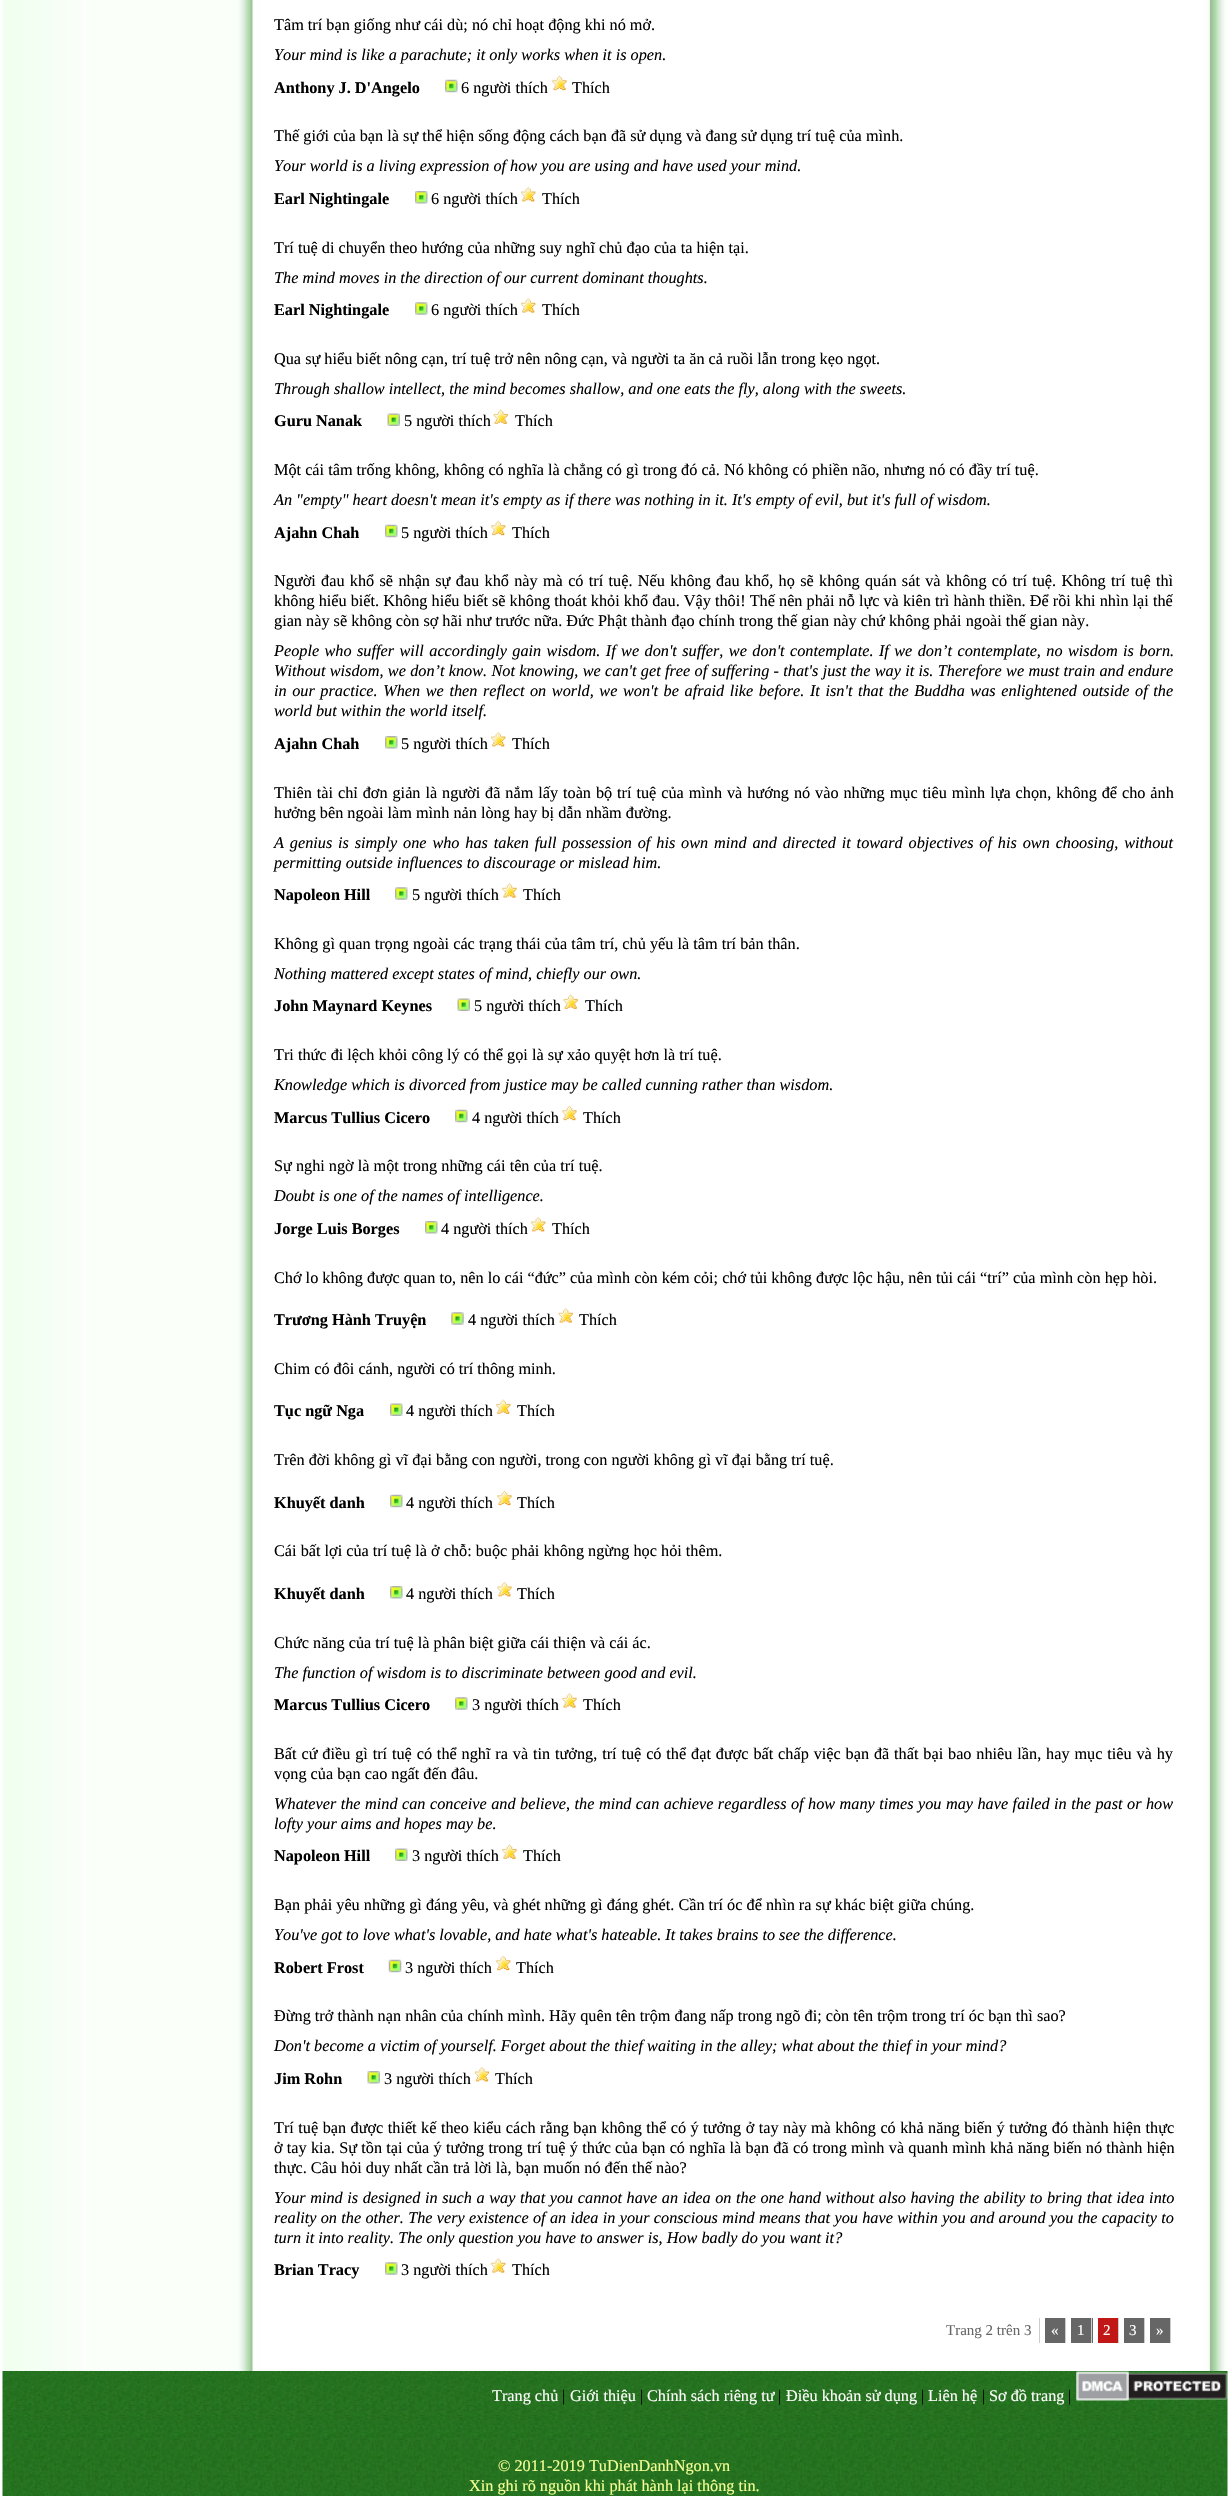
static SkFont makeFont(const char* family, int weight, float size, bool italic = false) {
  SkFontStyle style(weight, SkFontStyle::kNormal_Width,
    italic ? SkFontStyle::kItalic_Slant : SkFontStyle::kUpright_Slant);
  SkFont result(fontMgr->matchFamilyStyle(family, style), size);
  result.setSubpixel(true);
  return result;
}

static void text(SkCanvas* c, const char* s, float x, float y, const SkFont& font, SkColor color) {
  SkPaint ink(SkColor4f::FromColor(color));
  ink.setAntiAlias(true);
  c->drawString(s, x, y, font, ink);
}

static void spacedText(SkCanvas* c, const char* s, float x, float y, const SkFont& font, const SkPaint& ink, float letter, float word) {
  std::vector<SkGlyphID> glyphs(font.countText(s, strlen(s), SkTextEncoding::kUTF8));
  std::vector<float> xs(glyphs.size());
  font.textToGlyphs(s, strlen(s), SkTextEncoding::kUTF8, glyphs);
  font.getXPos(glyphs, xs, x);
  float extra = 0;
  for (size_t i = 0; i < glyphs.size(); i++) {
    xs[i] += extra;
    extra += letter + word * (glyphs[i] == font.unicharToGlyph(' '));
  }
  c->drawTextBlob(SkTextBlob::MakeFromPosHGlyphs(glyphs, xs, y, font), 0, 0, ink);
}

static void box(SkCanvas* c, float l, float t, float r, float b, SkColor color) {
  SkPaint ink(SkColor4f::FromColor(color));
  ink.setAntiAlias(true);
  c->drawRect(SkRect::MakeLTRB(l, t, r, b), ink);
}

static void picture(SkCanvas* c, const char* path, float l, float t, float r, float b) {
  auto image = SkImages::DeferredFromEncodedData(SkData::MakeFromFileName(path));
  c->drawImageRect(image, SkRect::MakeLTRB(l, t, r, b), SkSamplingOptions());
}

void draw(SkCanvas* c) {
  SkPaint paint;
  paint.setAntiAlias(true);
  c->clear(0xffffffff);
  picture(c, "img_01.png", 2, 0, 1227, 2371);
  SkFont face1 = makeFont("Liberation Serif", 400, 16.25f);
  text(c, "Tâm trí bạn giống như cái dù; nó chỉ hoạt động khi nó mở.", 274, 30, face1, 0xff000000);
  SkFont face2 = makeFont("Liberation Serif", 400, 16.25f, true);
  text(c, "Your mind is like a parachute; it only works when it is open.", 274, 60, face2, 0xff000000);
  SkFont face3 = makeFont("Liberation Serif", 700, 16.25f);
  text(c, "Anthony J. D'Angelo", 274, 93, face3, 0xff000000);
  picture(c, "img_02.png", 445, 79, 458, 93);
  text(c, "6 người thích", 461, 93, face1, 0xff000000);
  picture(c, "img_03.png", 552, 75, 567, 91);
  text(c, "Thích", 572, 93, face1, 0xff000000);
  text(c, "Thế giới của bạn là sự thể hiện sống động cách bạn đã sử dụng và đang sử dụng trí tuệ của mình.", 274, 141, face1, 0xff000000);
  text(c, "Your world is a living expression of how you are using and have used your mind.", 274, 171, face2, 0xff000000);
  text(c, "Earl Nightingale", 274, 204, face3, 0xff000000);
  picture(c, "img_04.png", 415, 191, 428, 204);
  text(c, "6 người thích", 431, 204, face1, 0xff000000);
  picture(c, "img_05.png", 521, 187, 536, 202);
  text(c, "Thích", 542, 204, face1, 0xff000000);
  text(c, "Trí tuệ di chuyển theo hướng của những suy nghĩ chủ đạo của ta hiện tại.", 274, 253, face1, 0xff000000);
  text(c, "The mind moves in the direction of our current dominant thoughts.", 274, 283, face2, 0xff000000);
  text(c, "Earl Nightingale", 274, 315, face3, 0xff000000);
  picture(c, "img_06.png", 415, 302, 428, 315);
  text(c, "6 người thích", 431, 315, face1, 0xff000000);
  picture(c, "img_07.png", 521, 298, 536, 313);
  text(c, "Thích", 542, 315, face1, 0xff000000);
  text(c, "Qua sự hiểu biết nông cạn, trí tuệ trở nên nông cạn, và người ta ăn cả ruồi lẫn trong kẹo ngọt.", 274, 364, face1, 0xff000000);
  text(c, "Through shallow intellect, the mind becomes shallow, and one eats the fly, along with the sweets.", 274, 394, face2, 0xff000000);
  text(c, "Guru Nanak", 274, 426, face3, 0xff000000);
  picture(c, "img_08.png", 387, 413, 400, 426);
  text(c, "5 người thích", 404, 426, face1, 0xff000000);
  picture(c, "img_09.png", 493, 409, 508, 424);
  text(c, "Thích", 515, 426, face1, 0xff000000);
  text(c, "Một cái tâm trống không, không có nghĩa là chẳng có gì trong đó cả. Nó không có phiền não, nhưng nó có đầy trí tuệ.", 274, 475, face1, 0xff000000);
  text(c, "An \"empty\" heart doesn't mean it's empty as if there was nothing in it. It's empty of evil, but it's full of wisdom.", 274, 505, face2, 0xff000000);
  text(c, "Ajahn Chah", 274, 538, face3, 0xff000000);
  picture(c, "img_02.png", 385, 524, 398, 538);
  text(c, "5 người thích", 401, 538, face1, 0xff000000);
  picture(c, "img_10.png", 491, 520, 506, 536);
  text(c, "Thích", 512, 538, face1, 0xff000000);
  paint.setColor(0xff000000);
  spacedText(c, "Người đau khổ sẽ nhận sự đau khổ này mà có trí tuệ. Nếu không đau khổ, họ sẽ không quán sát và không có trí tuệ. Không trí tuệ thì", 274, 586, face1, paint, 0, 1.25f);
  text(c, "không hiểu biết. Không hiểu biết sẽ không thoát khỏi khổ đau. Vậy thôi! Thế nên phải nỗ lực và kiên trì hành thiền. Để rồi khi nhìn lại thế", 274, 606, face1, 0xff000000);
  text(c, "gian này sẽ không còn sợ hãi như trước nữa. Đức Phật thành đạo chính trong thế gian này chứ không phải ngoài thế gian này.", 274, 626, face1, 0xff000000);
  spacedText(c, "People who suffer will accordingly gain wisdom. If we don't suffer, we don't contemplate. If we don’t contemplate, no wisdom is born.", 274, 656, face2, paint, 0, 1.35f);
  spacedText(c, "Without wisdom, we don’t know. Not knowing, we can't get free of suffering - that's just the way it is. Therefore we must train and endure", 274, 676, face2, paint, 0, 0.25f);
  spacedText(c, "in our practice. When we then reflect on world, we won't be afraid like before. It isn't that the Buddha was enlightened outside of the", 274, 696, face2, paint, 0, 1.5f);
  text(c, "world but within the world itself.", 274, 716, face2, 0xff000000);
  text(c, "Ajahn Chah", 274, 749, face3, 0xff000000);
  picture(c, "img_04.png", 385, 736, 398, 749);
  text(c, "5 người thích", 401, 749, face1, 0xff000000);
  picture(c, "img_05.png", 491, 732, 506, 747);
  text(c, "Thích", 512, 749, face1, 0xff000000);
  spacedText(c, "Thiên tài chỉ đơn giản là người đã nắm lấy toàn bộ trí tuệ của mình và hướng nó vào những mục tiêu mình lựa chọn, không để cho ảnh", 274, 798, face1, paint, 0, 0.85f);
  text(c, "hưởng bên ngoài làm mình nản lòng hay bị dẫn nhầm đường.", 274, 818, face1, 0xff000000);
  spacedText(c, "A genius is simply one who has taken full possession of his own mind and directed it toward objectives of his own choosing, without", 274, 848, face2, paint, 0, 1.8f);
  text(c, "permitting outside influences to discourage or mislead him.", 274, 868, face2, 0xff000000);
  text(c, "Napoleon Hill", 274, 900, face3, 0xff000000);
  picture(c, "img_06.png", 395, 887, 408, 900);
  text(c, "5 người thích", 412, 900, face1, 0xff000000);
  picture(c, "img_11.png", 502, 883, 517, 898);
  text(c, "Thích", 523, 900, face1, 0xff000000);
  text(c, "Không gì quan trọng ngoài các trạng thái của tâm trí, chủ yếu là tâm trí bản thân.", 274, 949, face1, 0xff000000);
  text(c, "Nothing mattered except states of mind, chiefly our own.", 274, 979, face2, 0xff000000);
  text(c, "John Maynard Keynes", 274, 1011, face3, 0xff000000);
  picture(c, "img_08.png", 457, 998, 470, 1011);
  text(c, "5 người thích", 474, 1011, face1, 0xff000000);
  picture(c, "img_09.png", 563, 994, 578, 1009);
  text(c, "Thích", 585, 1011, face1, 0xff000000);
  text(c, "Tri thức đi lệch khỏi công lý có thể gọi là sự xảo quyệt hơn là trí tuệ.", 274, 1060, face1, 0xff000000);
  text(c, "Knowledge which is divorced from justice may be called cunning rather than wisdom.", 274, 1090, face2, 0xff000000);
  text(c, "Marcus Tullius Cicero", 274, 1123, face3, 0xff000000);
  picture(c, "img_02.png", 455, 1109, 468, 1123);
  text(c, "4 người thích", 472, 1123, face1, 0xff000000);
  picture(c, "img_03.png", 562, 1105, 577, 1121);
  text(c, "Thích", 583, 1123, face1, 0xff000000);
  text(c, "Sự nghi ngờ là một trong những cái tên của trí tuệ.", 274, 1171, face1, 0xff000000);
  text(c, "Doubt is one of the names of intelligence.", 274, 1201, face2, 0xff000000);
  text(c, "Jorge Luis Borges", 274, 1234, face3, 0xff000000);
  picture(c, "img_04.png", 425, 1221, 438, 1234);
  text(c, "4 người thích", 441, 1234, face1, 0xff000000);
  picture(c, "img_05.png", 531, 1217, 546, 1232);
  text(c, "Thích", 552, 1234, face1, 0xff000000);
  text(c, "Chớ lo không được quan to, nên lo cái “đức” của mình còn kém cỏi; chớ tủi không được lộc hậu, nên tủi cái “trí” của mình còn hẹp hòi.", 274, 1283, face1, 0xff000000);
  text(c, "Trương Hành Truyện", 274, 1325, face3, 0xff000000);
  picture(c, "img_12.png", 451, 1312, 464, 1325);
  text(c, "4 người thích", 468, 1325, face1, 0xff000000);
  picture(c, "img_13.png", 558, 1308, 573, 1323);
  text(c, "Thích", 579, 1325, face1, 0xff000000);
  text(c, "Chim có đôi cánh, người có trí thông minh.", 274, 1374, face1, 0xff000000);
  text(c, "Tục ngữ Nga", 274, 1416, face3, 0xff000000);
  picture(c, "img_14.png", 390, 1403, 403, 1416);
  text(c, "4 người thích", 406, 1416, face1, 0xff000000);
  picture(c, "img_15.png", 496, 1399, 511, 1414);
  text(c, "Thích", 517, 1416, face1, 0xff000000);
  text(c, "Trên đời không gì vĩ đại bằng con người, trong con người không gì vĩ đại bằng trí tuệ.", 274, 1465, face1, 0xff000000);
  text(c, "Khuyết danh", 274, 1508, face3, 0xff000000);
  picture(c, "img_02.png", 390, 1494, 403, 1508);
  text(c, "4 người thích", 406, 1508, face1, 0xff000000);
  picture(c, "img_03.png", 497, 1490, 512, 1506);
  text(c, "Thích", 517, 1508, face1, 0xff000000);
  text(c, "Cái bất lợi của trí tuệ là ở chỗ: buộc phải không ngừng học hỏi thêm.", 274, 1556, face1, 0xff000000);
  text(c, "Khuyết danh", 274, 1599, face3, 0xff000000);
  picture(c, "img_04.png", 390, 1586, 403, 1599);
  text(c, "4 người thích", 406, 1599, face1, 0xff000000);
  picture(c, "img_16.png", 497, 1582, 512, 1597);
  text(c, "Thích", 517, 1599, face1, 0xff000000);
  text(c, "Chức năng của trí tuệ là phân biệt giữa cái thiện và cái ác.", 274, 1648, face1, 0xff000000);
  text(c, "The function of wisdom is to discriminate between good and evil.", 274, 1678, face2, 0xff000000);
  text(c, "Marcus Tullius Cicero", 274, 1710, face3, 0xff000000);
  picture(c, "img_06.png", 455, 1697, 468, 1710);
  text(c, "3 người thích", 472, 1710, face1, 0xff000000);
  picture(c, "img_11.png", 562, 1693, 577, 1708);
  text(c, "Thích", 583, 1710, face1, 0xff000000);
  spacedText(c, "Bất cứ điều gì trí tuệ có thể nghĩ ra và tin tưởng, trí tuệ có thể đạt được bất chấp việc bạn đã thất bại bao nhiêu lần, hay mục tiêu và hy", 274, 1759, face1, paint, 0, 0.8f);
  text(c, "vọng của bạn cao ngất đến đâu.", 274, 1779, face1, 0xff000000);
  spacedText(c, "Whatever the mind can conceive and believe, the mind can achieve regardless of how many times you may have failed in the past or how", 274, 1809, face2, paint, 0, 0.4f);
  text(c, "lofty your aims and hopes may be.", 274, 1829, face2, 0xff000000);
  text(c, "Napoleon Hill", 274, 1861, face3, 0xff000000);
  picture(c, "img_14.png", 395, 1848, 408, 1861);
  text(c, "3 người thích", 412, 1861, face1, 0xff000000);
  picture(c, "img_17.png", 502, 1844, 517, 1859);
  text(c, "Thích", 523, 1861, face1, 0xff000000);
  text(c, "Bạn phải yêu những gì đáng yêu, và ghét những gì đáng ghét. Cần trí óc để nhìn ra sự khác biệt giữa chúng.", 274, 1910, face1, 0xff000000);
  text(c, "You've got to love what's lovable, and hate what's hateable. It takes brains to see the difference.", 274, 1940, face2, 0xff000000);
  text(c, "Robert Frost", 274, 1973, face3, 0xff000000);
  picture(c, "img_18.png", 388, 1959, 402, 1973);
  text(c, "3 người thích", 405, 1973, face1, 0xff000000);
  picture(c, "img_10.png", 496, 1955, 511, 1971);
  text(c, "Thích", 516, 1973, face1, 0xff000000);
  text(c, "Đừng trở thành nạn nhân của chính mình. Hãy quên tên trộm đang nấp trong ngõ đi; còn tên trộm trong trí óc bạn thì sao?", 274, 2021, face1, 0xff000000);
  text(c, "Don't become a victim of yourself. Forget about the thief waiting in the alley; what about the thief in your mind?", 274, 2051, face2, 0xff000000);
  text(c, "Jim Rohn", 274, 2084, face3, 0xff000000);
  picture(c, "img_19.png", 367, 2071, 380, 2084);
  text(c, "3 người thích", 384, 2084, face1, 0xff000000);
  picture(c, "img_20.png", 474, 2067, 490, 2082);
  text(c, "Thích", 495, 2084, face1, 0xff000000);
  spacedText(c, "Trí tuệ bạn được thiết kế theo kiểu cách rằng bạn không thể có ý tưởng ở tay này mà không có khả năng biến ý tưởng đó thành hiện thực", 274, 2133, face1, paint, 0, 0.4f);
  spacedText(c, "ở tay kia. Sự tồn tại của ý tưởng trong trí tuệ ý thức của bạn có nghĩa là bạn đã có trong mình và quanh mình khả năng biến nó thành hiện", 274, 2153, face1, paint, 0, 0.2f);
  text(c, "thực. Câu hỏi duy nhất cần trả lời là, bạn muốn nó đến thế nào?", 274, 2173, face1, 0xff000000);
  spacedText(c, "Your mind is designed in such a way that you cannot have an idea on the one hand without also having the ability to bring that idea into", 274, 2203, face2, paint, 0, 0.5f);
  spacedText(c, "reality on the other. The very existence of an idea in your conscious mind means that you have within you and around you the capacity to", 274, 2223, face2, paint, 0, 0.25f);
  text(c, "turn it into reality. The only question you have to answer is, How badly do you want it?", 274, 2243, face2, 0xff000000);
  text(c, "Brian Tracy", 274, 2275, face3, 0xff000000);
  picture(c, "img_06.png", 385, 2262, 398, 2275);
  text(c, "3 người thích", 401, 2275, face1, 0xff000000);
  picture(c, "img_07.png", 491, 2258, 506, 2273);
  text(c, "Thích", 512, 2275, face1, 0xff000000);
  SkFont face4 = makeFont("Liberation Serif", 400, 15);
  text(c, "Trang 2 trên 3", 946, 2335, face4, 0xff666666);
  box(c, 1039, 2318, 1040, 2343, 0xffcccccc);
  box(c, 1045, 2318, 1065, 2343, 0xff666666);
  text(c, "«", 1051, 2335, face4, 0xffffffff);
  box(c, 1065, 2318, 1066, 2343, 0xffcccccc);
  box(c, 1071, 2318, 1093, 2343, 0xff666666);
  text(c, "1", 1077, 2335, face4, 0xffffffff);
  box(c, 1091, 2318, 1092, 2343, 0xffcccccc);
  box(c, 1098, 2318, 1118, 2343, 0xffc11717);
  text(c, "2", 1103, 2335, face4, 0xffffffff);
  box(c, 1118, 2318, 1119, 2343, 0xffcccccc);
  box(c, 1124, 2318, 1144, 2343, 0xff666666);
  text(c, "3", 1129, 2335, face4, 0xffffffff);
  box(c, 1144, 2318, 1145, 2343, 0xffcccccc);
  box(c, 1150, 2318, 1170, 2343, 0xff666666);
  text(c, "»", 1156, 2335, face4, 0xffffffff);
  box(c, 1170, 2318, 1171, 2343, 0xffcccccc);
  picture(c, "img_21.png", 2, 2371, 1228, 2496);
  text(c, "Trang chủ", 492, 2401, face1, 0xffffffff);
  text(c, "|", 562, 2401, face1, 0xff000000);
  text(c, "Giới thiệu", 570, 2401, face1, 0xffffffff);
  text(c, "|", 640, 2401, face1, 0xff000000);
  text(c, "Chính sách riêng tư", 647, 2401, face1, 0xffffffff);
  text(c, "|", 778, 2401, face1, 0xff000000);
  text(c, "Điều khoản sử dụng", 786, 2401, face1, 0xffffffff);
  text(c, "|", 921, 2401, face1, 0xff000000);
  text(c, "Liên hệ", 928, 2401, face1, 0xffffffff);
  text(c, "|", 982, 2401, face1, 0xff000000);
  text(c, "Sơ đồ trang", 989, 2401, face1, 0xffffffff);
  text(c, "|", 1068, 2401, face1, 0xff000000);
  picture(c, "img_22.png", 1076, 2371, 1228, 2401);
  text(c, "© 2011-2019 TuDienDanhNgon.vn", 498, 2471, face1, 0xfff4ff94);
  text(c, "Xin ghi rõ nguồn khi phát hành lại thông tin.", 469, 2491, face1, 0xfff4ff94);
}
